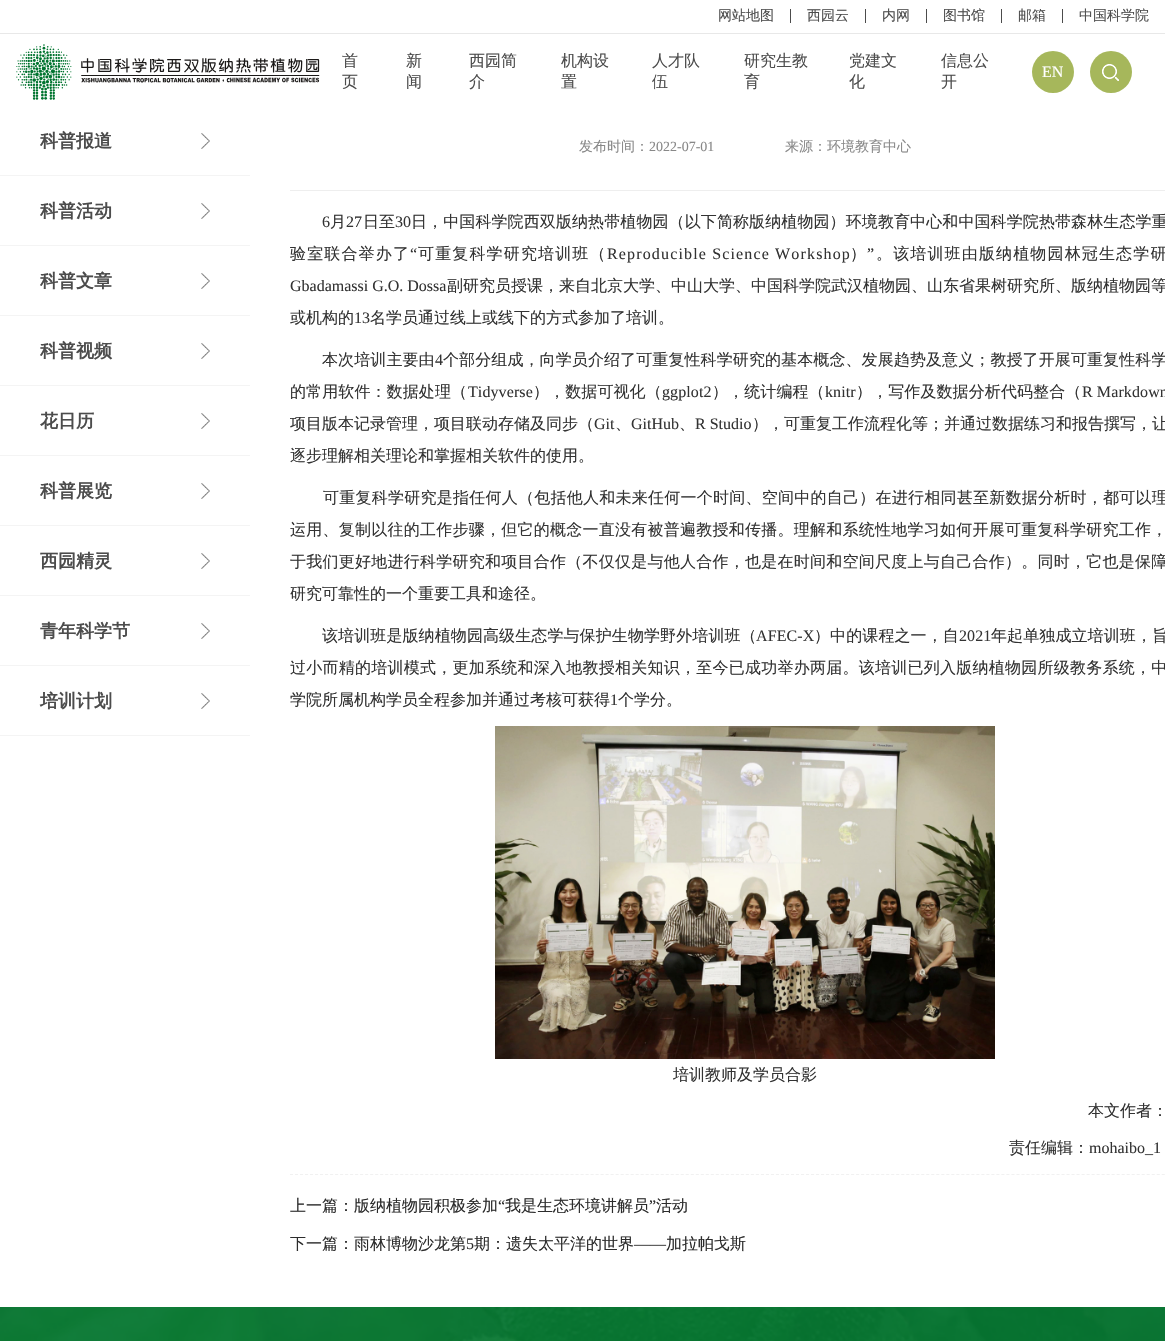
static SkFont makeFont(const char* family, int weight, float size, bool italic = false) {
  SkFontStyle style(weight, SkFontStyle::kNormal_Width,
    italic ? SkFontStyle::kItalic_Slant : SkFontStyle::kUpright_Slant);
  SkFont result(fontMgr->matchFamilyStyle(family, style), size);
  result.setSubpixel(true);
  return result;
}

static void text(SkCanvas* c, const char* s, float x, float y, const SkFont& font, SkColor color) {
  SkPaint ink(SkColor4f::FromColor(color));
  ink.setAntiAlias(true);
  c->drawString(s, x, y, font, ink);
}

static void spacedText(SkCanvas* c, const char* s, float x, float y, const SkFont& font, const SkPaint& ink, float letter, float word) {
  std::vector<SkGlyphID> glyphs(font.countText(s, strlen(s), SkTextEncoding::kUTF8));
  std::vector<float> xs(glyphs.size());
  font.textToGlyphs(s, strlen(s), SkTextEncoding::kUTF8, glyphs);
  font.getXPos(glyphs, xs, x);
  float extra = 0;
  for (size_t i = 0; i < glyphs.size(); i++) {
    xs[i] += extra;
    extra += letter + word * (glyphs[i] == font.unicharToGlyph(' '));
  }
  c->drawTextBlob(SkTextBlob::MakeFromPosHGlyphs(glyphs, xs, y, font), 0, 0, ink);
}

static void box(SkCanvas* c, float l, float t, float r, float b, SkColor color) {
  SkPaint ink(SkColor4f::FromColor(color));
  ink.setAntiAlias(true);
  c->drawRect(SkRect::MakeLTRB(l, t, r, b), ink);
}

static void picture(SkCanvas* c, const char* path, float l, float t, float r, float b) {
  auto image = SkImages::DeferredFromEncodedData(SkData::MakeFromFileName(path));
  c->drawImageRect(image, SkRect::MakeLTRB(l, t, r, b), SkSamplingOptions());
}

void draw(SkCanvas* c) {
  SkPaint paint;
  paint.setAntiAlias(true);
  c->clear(0xffffffff);
  SkFont face1 = makeFont("WenQuanYi Zen Hei", 500, 14);
  text(c, "网站地图", 718, 20, face1, 0xff4c4c4c);
  box(c, 790, 9, 791, 23, 0xff4c4c4c);
  text(c, "西园云", 807, 20, face1, 0xff4c4c4c);
  box(c, 865, 9, 866, 23, 0xff4c4c4c);
  text(c, "内网", 882, 20, face1, 0xff4c4c4c);
  box(c, 926, 9, 927, 23, 0xff4c4c4c);
  text(c, "图书馆", 943, 20, face1, 0xff4c4c4c);
  box(c, 1001, 9, 1002, 23, 0xff4c4c4c);
  text(c, "邮箱", 1018, 20, face1, 0xff4c4c4c);
  box(c, 1062, 9, 1063, 23, 0xff4c4c4c);
  text(c, "中国科学院", 1079, 20, face1, 0xff4c4c4c);
  box(c, 0, 33, 1165, 34, 0xffe8e8e8);
  picture(c, "img_01.png", 16, 44, 320, 100);
  SkFont face2 = makeFont("WenQuanYi Zen Hei", 500, 16);
  text(c, "首", 342, 66, face2, 0xff4c4c4c);
  text(c, "页", 342, 87, face2, 0xff4c4c4c);
  text(c, "新", 406, 66, face2, 0xff4c4c4c);
  text(c, "闻", 406, 87, face2, 0xff4c4c4c);
  text(c, "西园简", 469, 66, face2, 0xff4c4c4c);
  text(c, "介", 469, 87, face2, 0xff4c4c4c);
  text(c, "机构设", 561, 66, face2, 0xff4c4c4c);
  text(c, "置", 561, 87, face2, 0xff4c4c4c);
  text(c, "人才队", 652, 66, face2, 0xff4c4c4c);
  text(c, "伍", 652, 87, face2, 0xff4c4c4c);
  text(c, "研究生教", 744, 66, face2, 0xff4c4c4c);
  text(c, "育", 744, 87, face2, 0xff4c4c4c);
  text(c, "党建文", 849, 66, face2, 0xff4c4c4c);
  text(c, "化", 849, 87, face2, 0xff4c4c4c);
  text(c, "信息公", 941, 66, face2, 0xff4c4c4c);
  text(c, "开", 941, 87, face2, 0xff4c4c4c);
  paint.setColor(0xffa6b75b);
  c->drawCircle(1053, 72, 21, paint);
  SkFont face3 = makeFont("Liberation Serif", 400, 16);
  text(c, "EN", 1042, 77, face3, 0xffffffff);
  c->drawCircle(1111, 72, 21, paint);
  picture(c, "img_02.png", 1102, 64, 1119, 81);
  box(c, 0, 175, 250, 176, 0xfff4f4f4);
  SkFont face4 = makeFont("WenQuanYi Zen Hei", 700, 18);
  text(c, "科普报道", 40, 147, face4, 0xff4c4c4c);
  picture(c, "img_03.png", 201, 133, 210, 149);
  box(c, 0, 245, 250, 246, 0xfff4f4f4);
  text(c, "科普活动", 40, 217, face4, 0xff4c4c4c);
  picture(c, "img_03.png", 201, 203, 210, 219);
  box(c, 0, 315, 250, 316, 0xfff4f4f4);
  text(c, "科普文章", 40, 287, face4, 0xff4c4c4c);
  picture(c, "img_03.png", 201, 273, 210, 289);
  box(c, 0, 385, 250, 386, 0xfff4f4f4);
  text(c, "科普视频", 40, 357, face4, 0xff4c4c4c);
  picture(c, "img_03.png", 201, 343, 210, 359);
  box(c, 0, 455, 250, 456, 0xfff4f4f4);
  text(c, "花日历", 40, 427, face4, 0xff4c4c4c);
  picture(c, "img_03.png", 201, 413, 210, 429);
  box(c, 0, 525, 250, 526, 0xfff4f4f4);
  text(c, "科普展览", 40, 497, face4, 0xff4c4c4c);
  picture(c, "img_03.png", 201, 483, 210, 499);
  box(c, 0, 595, 250, 596, 0xfff4f4f4);
  text(c, "西园精灵", 40, 567, face4, 0xff4c4c4c);
  picture(c, "img_03.png", 201, 553, 210, 569);
  box(c, 0, 665, 250, 666, 0xfff4f4f4);
  text(c, "青年科学节", 40, 637, face4, 0xff4c4c4c);
  picture(c, "img_03.png", 201, 623, 210, 639);
  box(c, 0, 735, 250, 736, 0xfff4f4f4);
  text(c, "培训计划", 40, 707, face4, 0xff4c4c4c);
  picture(c, "img_03.png", 201, 693, 210, 709);
  box(c, 290, 190, 1165, 191, 0xffeeeeee);
  text(c, "发布时间：", 579, 151, face1, 0xff888888);
  SkFont face5 = makeFont("Liberation Serif", 400, 14);
  text(c, "2022-07-01", 649, 151, face5, 0xff888888);
  text(c, "来源：环境教育中心", 785, 151, face1, 0xff888888);
  paint.setStyle(SkPaint::kStroke_Style);
  paint.setStrokeWidth(1);
  paint.setColor(0xfff1f1f1);
  paint.setPathEffect(SkDashPathEffect::Make({{3, 2.01f}}, 0));
  c->drawPath(SkPathBuilder().moveTo(290, 1174.5f).lineTo(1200, 1174.5f).detach(), paint);
  paint.setPathEffect(nullptr);
  paint.setStyle(SkPaint::kFill_Style);
  paint.setColor(0xff333333);
  spacedText(c, "6", 322, 227, face3, paint, 0.1f, 0);
  spacedText(c, "月", 330, 227, face2, paint, 0.1f, 0);
  spacedText(c, "27", 346, 227, face3, paint, 0.1f, 0);
  spacedText(c, "日至", 363, 227, face2, paint, 0.1f, 0);
  spacedText(c, "30", 395, 227, face3, paint, 0.1f, 0);
  spacedText(c, "日，中国科学院西双版纳热带植物园（以下简称版纳植物园）环境教育中心和中国科学院热带森林生态学重", 411, 227, face2, paint, 0.1f, 0);
  spacedText(c, "验室联合举办了", 290, 259, face2, paint, 1.15f, 0);
  spacedText(c, "“", 410, 259, face3, paint, 1.15f, 0);
  spacedText(c, "可重复科学研究培训班（", 418, 259, face2, paint, 1.15f, 0);
  spacedText(c, "Reproducible Science Workshop", 607, 259, face3, paint, 1.15f, 0);
  spacedText(c, "）", 850, 259, face2, paint, 1.15f, 0);
  spacedText(c, "”", 867, 259, face3, paint, 1.15f, 0);
  spacedText(c, "。该培训班由版纳植物园林冠生态学研", 876, 259, face2, paint, 1.15f, 0);
  text(c, "Gbadamassi G.O. Dossa", 290, 291, face3, 0xff333333);
  text(c, "副研究员授课，来自北京大学、中山大学、中国科学院武汉植物园、山东省果树研究所、版纳植物园等", 447, 291, face2, 0xff333333);
  text(c, "或机构的", 290, 323, face2, 0xff333333);
  text(c, "13", 354, 323, face3, 0xff333333);
  text(c, "名学员通过线上或线下的方式参加了培训。", 370, 323, face2, 0xff333333);
  spacedText(c, "本次培训主要由", 322, 365, face2, paint, 0.1f, 0);
  spacedText(c, "4", 435, 365, face3, paint, 0.1f, 0);
  spacedText(c, "个部分组成，向学员介绍了可重复性科学研究的基本概念、发展趋势及意义；教授了开展可重复性科学", 443, 365, face2, paint, 0.1f, 0);
  spacedText(c, "的常用软件：数据处理（", 290, 397, face2, paint, 0.1f, 0);
  spacedText(c, "Tidyverse", 468, 397, face3, paint, 0.1f, 0);
  spacedText(c, "），数据可视化（", 533, 397, face2, paint, 0.1f, 0);
  spacedText(c, "ggplot2", 662, 397, face3, paint, 0.1f, 0);
  spacedText(c, "），统计编程（", 712, 397, face2, paint, 0.1f, 0);
  spacedText(c, "knitr", 825, 397, face3, paint, 0.1f, 0);
  spacedText(c, "），写作及数据分析代码整合（", 856, 397, face2, paint, 0.1f, 0);
  spacedText(c, "R Markdown", 1082, 397, face3, paint, 0.1f, 0);
  text(c, "项目版本记录管理，项目联动存储及同步（", 290, 429, face2, 0xff333333);
  text(c, "Git", 594, 429, face3, 0xff333333);
  text(c, "、", 615, 429, face2, 0xff333333);
  text(c, "GitHub", 631, 429, face3, 0xff333333);
  text(c, "、", 679, 429, face2, 0xff333333);
  text(c, "R Studio", 695, 429, face3, 0xff333333);
  text(c, "），可重复工作流程化等；并通过数据练习和报告撰写，让", 752, 429, face2, 0xff333333);
  text(c, "逐步理解相关理论和掌握相关软件的使用。", 290, 461, face2, 0xff333333);
  spacedText(c, "可重复科学研究是指任何人（包括他人和未来任何一个时间、空间中的自己）在进行相同甚至新数据分析时，都可以理", 323, 503, face2, paint, 0.25f, 0);
  spacedText(c, "运用、复制以往的工作步骤，但它的概念一直没有被普遍教授和传播。理解和系统性地学习如何开展可重复科学研究工作，", 290, 535, face2, paint, 0.25f, 0);
  spacedText(c, "于我们更好地进行科学研究和项目合作（不仅仅是与他人合作，也是在时间和空间尺度上与自己合作）。同时，它也是保障", 290, 567, face2, paint, 0.25f, 0);
  text(c, "研究可靠性的一个重要工具和途径。", 290, 599, face2, 0xff333333);
  spacedText(c, "该培训班是版纳植物园高级生态学与保护生物学野外培训班（", 322, 641, face2, paint, 0.1f, 0);
  spacedText(c, "AFEC-X", 756, 641, face3, paint, 0.1f, 0);
  spacedText(c, "）中的课程之一，自", 814, 641, face2, paint, 0.1f, 0);
  spacedText(c, "2021", 959, 641, face3, paint, 0.1f, 0);
  spacedText(c, "年起单独成立培训班，旨", 991, 641, face2, paint, 0.1f, 0);
  spacedText(c, "过小而精的培训模式，更加系统和深入地教授相关知识，至今已成功举办两届。该培训已列入版纳植物园所级教务系统，中", 290, 673, face2, paint, 0.25f, 0);
  text(c, "学院所属机构学员全程参加并通过考核可获得", 290, 705, face2, 0xff333333);
  text(c, "1", 610, 705, face3, 0xff333333);
  text(c, "个学分。", 618, 705, face2, 0xff333333);
  picture(c, "img_04.png", 495, 726, 995, 1059);
  text(c, "培训教师及学员合影", 673, 1080, face2, 0xff333333);
  text(c, "本文作者：", 1088, 1116, face2, 0xff333333);
  text(c, "责任编辑：", 1009, 1153, face2, 0xff333333);
  text(c, "mohaibo_1", 1089, 1153, face3, 0xff333333);
  text(c, "上一篇：版纳植物园积极参加", 290, 1211, face2, 0xff2c2c2c);
  text(c, "“", 498, 1211, face3, 0xff2c2c2c);
  text(c, "我是生态环境讲解员", 505, 1211, face2, 0xff2c2c2c);
  text(c, "”", 649, 1211, face3, 0xff2c2c2c);
  text(c, "活动", 656, 1211, face2, 0xff2c2c2c);
  text(c, "下一篇：雨林博物沙龙第", 290, 1249, face2, 0xff2c2c2c);
  text(c, "5", 466, 1249, face3, 0xff2c2c2c);
  text(c, "期：遗失太平洋的世界", 474, 1249, face2, 0xff2c2c2c);
  text(c, "——", 634, 1249, face3, 0xff2c2c2c);
  text(c, "加拉帕戈斯", 666, 1249, face2, 0xff2c2c2c);
  picture(c, "img_05.png", 0, 1307, 1165, 1341);
}
